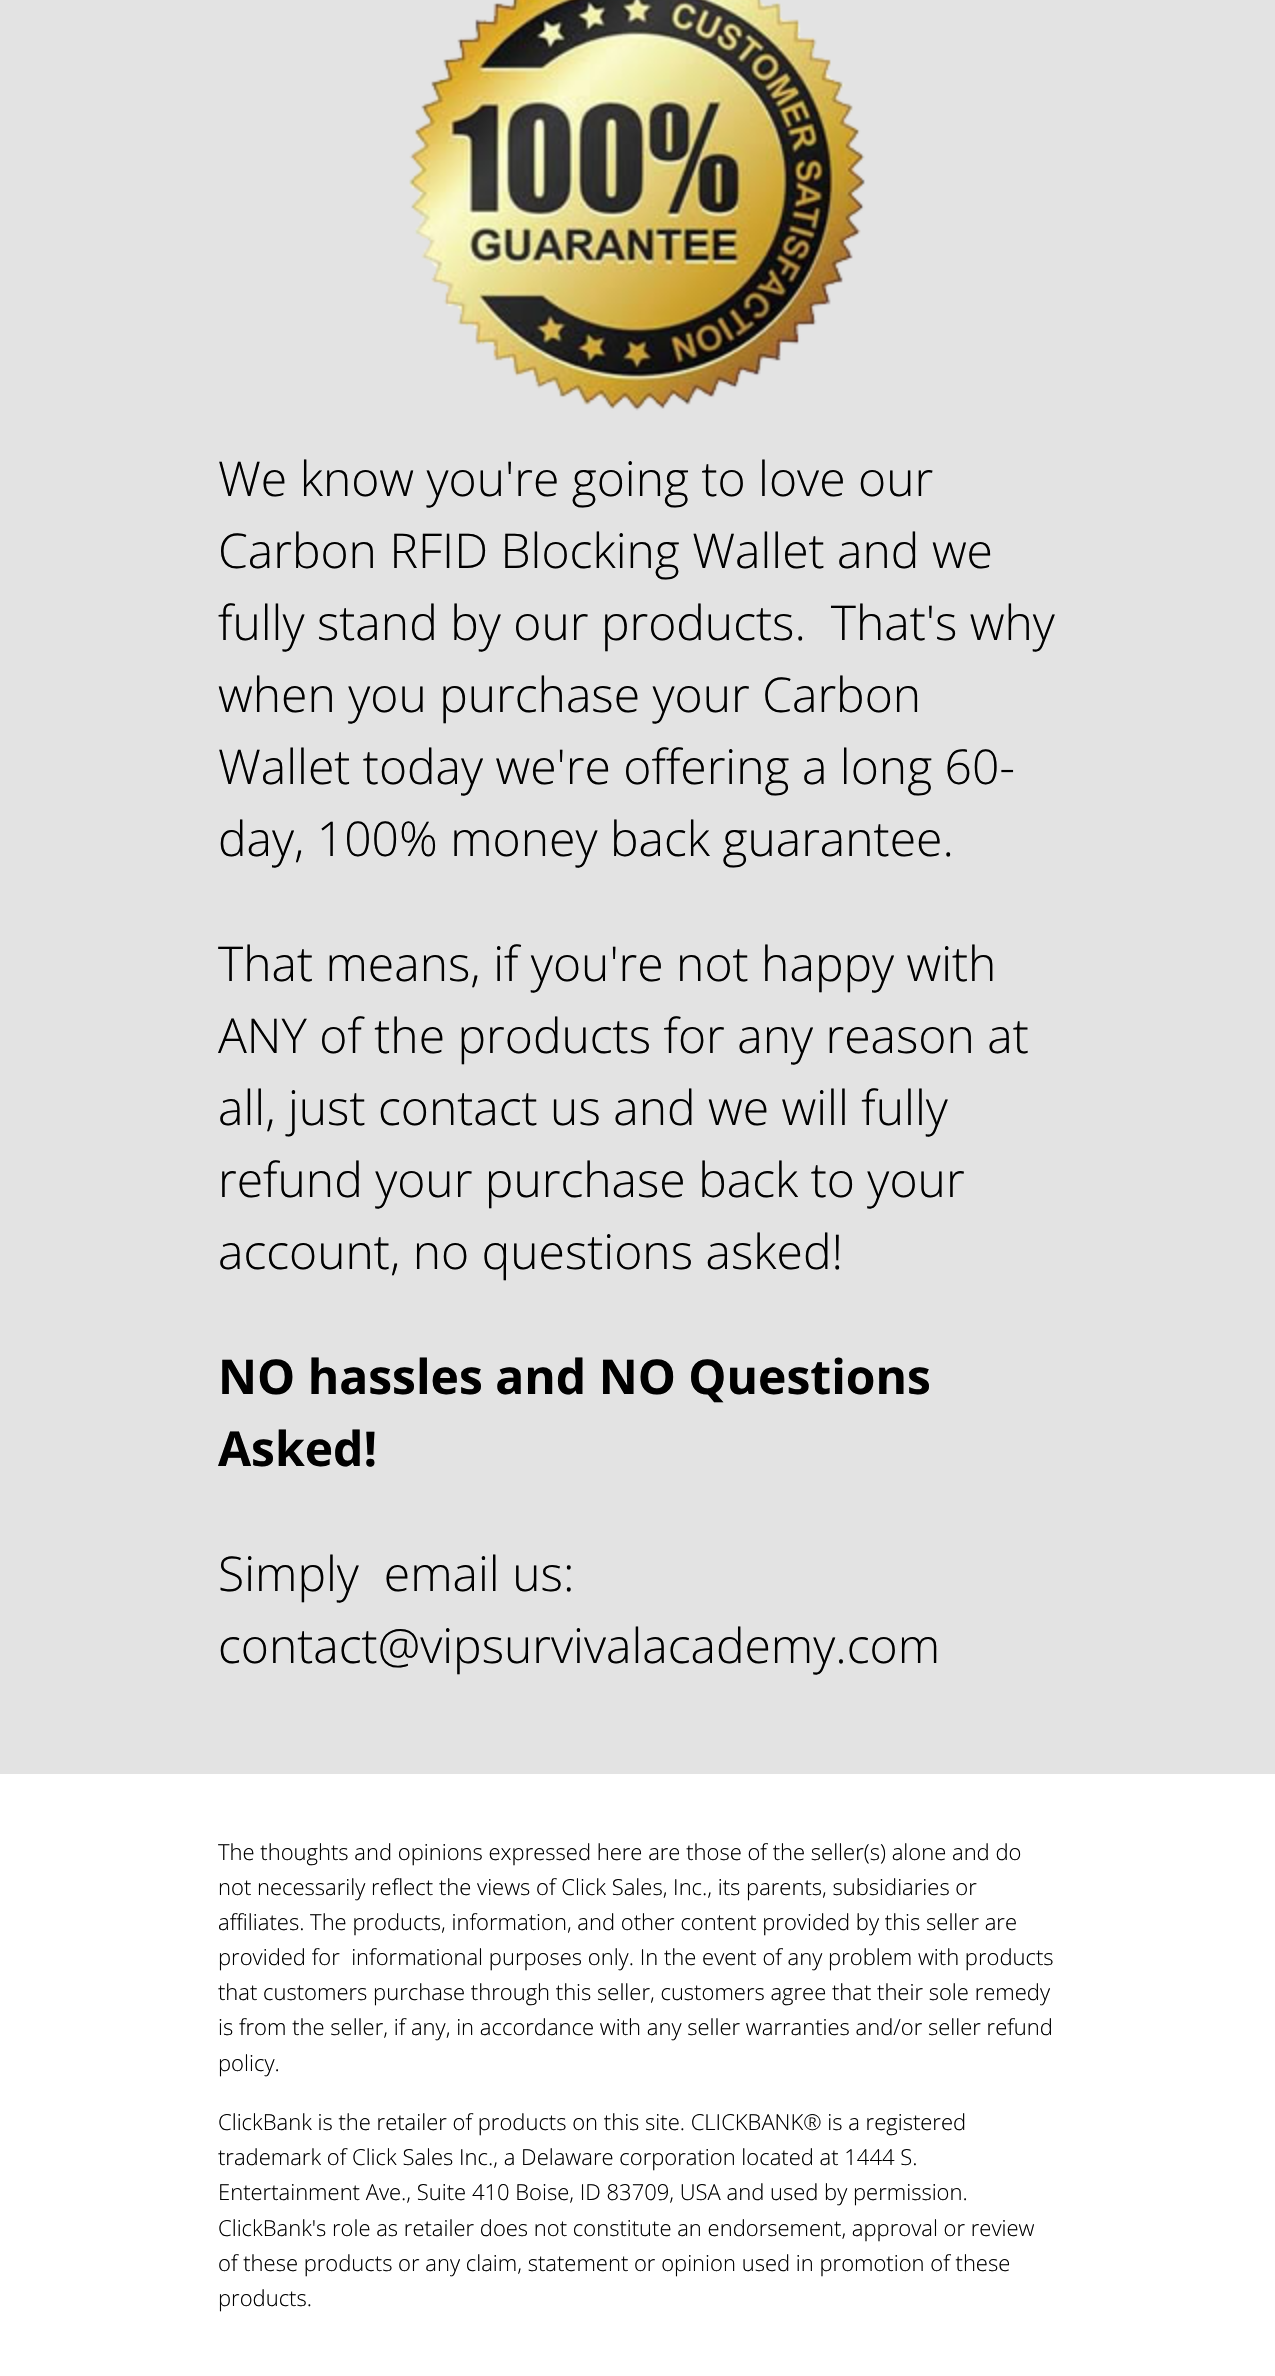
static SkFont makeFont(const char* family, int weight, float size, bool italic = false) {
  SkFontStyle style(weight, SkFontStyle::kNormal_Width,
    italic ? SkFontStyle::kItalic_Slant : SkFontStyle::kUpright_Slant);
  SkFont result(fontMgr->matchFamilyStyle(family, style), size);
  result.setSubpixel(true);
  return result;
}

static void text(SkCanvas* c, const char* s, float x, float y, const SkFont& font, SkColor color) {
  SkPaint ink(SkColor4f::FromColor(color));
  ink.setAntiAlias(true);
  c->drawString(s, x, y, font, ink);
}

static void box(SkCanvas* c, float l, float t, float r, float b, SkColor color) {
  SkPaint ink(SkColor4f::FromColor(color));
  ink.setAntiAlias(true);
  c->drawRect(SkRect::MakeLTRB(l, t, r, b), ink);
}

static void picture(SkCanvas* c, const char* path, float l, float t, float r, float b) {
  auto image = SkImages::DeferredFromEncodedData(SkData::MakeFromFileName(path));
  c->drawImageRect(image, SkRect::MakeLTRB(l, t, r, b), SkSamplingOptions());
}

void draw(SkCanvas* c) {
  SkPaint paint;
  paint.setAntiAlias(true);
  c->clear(0xffffffff);
  box(c, 0, 0, 1275, 1774, 0xffe3e3e3);
  picture(c, "img_01.png", 409, 0, 865, 411);
  SkFont face1 = makeFont("Open Sans", 300, 48);
  text(c, "We know you're going to love our", 218, 496, face1, 0xff000000);
  text(c, "Carbon RFID Blocking Wallet and we", 218, 568, face1, 0xff000000);
  text(c, "fully stand by our products.  That's why", 218, 640, face1, 0xff000000);
  text(c, "when you purchase your Carbon", 218, 712, face1, 0xff000000);
  text(c, "Wallet today we're offering a long 60-", 218, 784, face1, 0xff000000);
  text(c, "day, 100% money back guarantee.", 218, 856, face1, 0xff000000);
  text(c, "That means, if you're not happy with", 218, 981, face1, 0xff000000);
  text(c, "ANY of the products for any reason at", 218, 1053, face1, 0xff000000);
  text(c, "all, just contact us and we will fully", 218, 1125, face1, 0xff000000);
  text(c, "refund your purchase back to your", 218, 1197, face1, 0xff000000);
  text(c, "account, no questions asked!", 218, 1269, face1, 0xff000000);
  SkFont face2 = makeFont("Open Sans", 700, 48);
  text(c, "NO hassles and NO Questions", 218, 1394, face2, 0xff000000);
  text(c, "Asked!", 218, 1466, face2, 0xff000000);
  text(c, "Simply  email us:", 218, 1591, face1, 0xff000000);
  text(c, "contact@vipsurvivalacademy.com", 218, 1663, face1, 0xff000000);
  SkFont face3 = makeFont("Open Sans", 300, 22);
  text(c, "The thoughts and opinions expressed here are those of the seller(s) alone and do", 218, 1860, face3, 0xff000000);
  text(c, "not necessarily reflect the views of Click Sales, Inc., its parents, subsidiaries or", 218, 1895, face3, 0xff000000);
  text(c, "affiliates. The products, information, and other content provided by this seller are", 218, 1930, face3, 0xff000000);
  text(c, "provided for  informational purposes only. In the event of any problem with products", 218, 1965, face3, 0xff000000);
  text(c, "that customers purchase through this seller, customers agree that their sole remedy", 218, 2000, face3, 0xff000000);
  text(c, "is from the seller, if any, in accordance with any seller warranties and/or seller refund", 218, 2035, face3, 0xff000000);
  text(c, "policy.", 218, 2071, face3, 0xff000000);
  text(c, "ClickBank is the retailer of products on this site. CLICKBANK® is a registered", 218, 2130, face3, 0xff000000);
  text(c, "trademark of Click Sales Inc., a Delaware corporation located at 1444 S.", 218, 2165, face3, 0xff000000);
  text(c, "Entertainment Ave., Suite 410 Boise, ID 83709, USA and used by permission.", 218, 2200, face3, 0xff000000);
  text(c, "ClickBank's role as retailer does not constitute an endorsement, approval or review", 218, 2236, face3, 0xff000000);
  text(c, "of these products or any claim, statement or opinion used in promotion of these", 218, 2271, face3, 0xff000000);
  text(c, "products.", 218, 2306, face3, 0xff000000);
}
